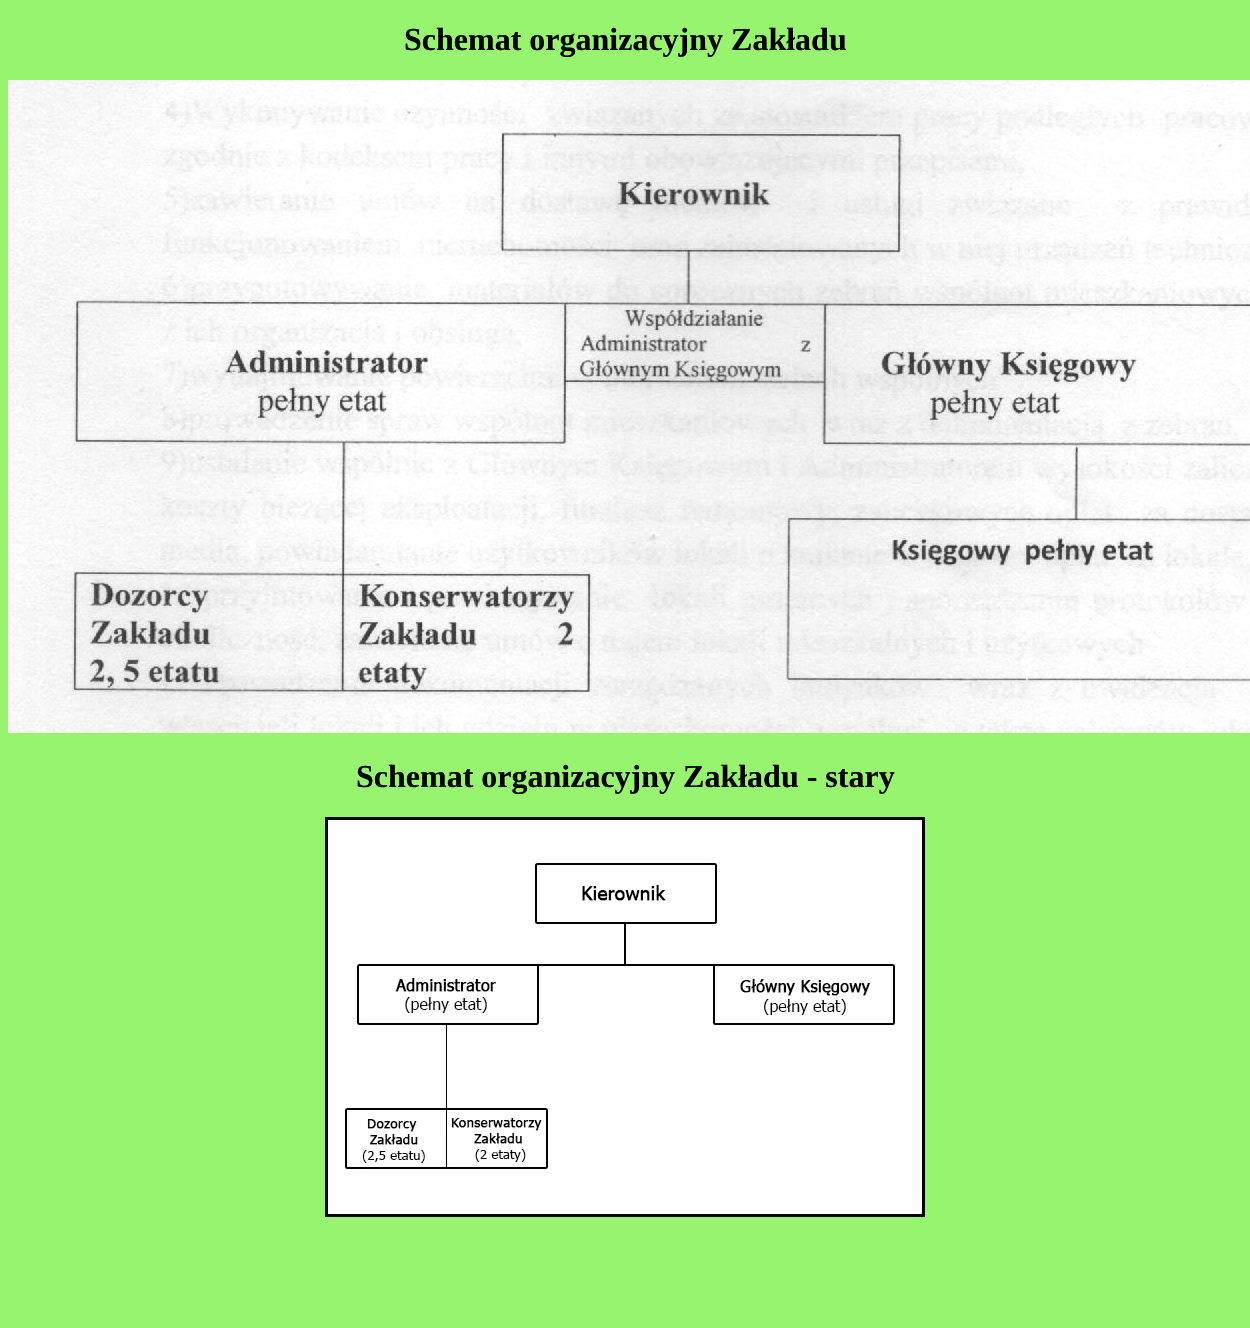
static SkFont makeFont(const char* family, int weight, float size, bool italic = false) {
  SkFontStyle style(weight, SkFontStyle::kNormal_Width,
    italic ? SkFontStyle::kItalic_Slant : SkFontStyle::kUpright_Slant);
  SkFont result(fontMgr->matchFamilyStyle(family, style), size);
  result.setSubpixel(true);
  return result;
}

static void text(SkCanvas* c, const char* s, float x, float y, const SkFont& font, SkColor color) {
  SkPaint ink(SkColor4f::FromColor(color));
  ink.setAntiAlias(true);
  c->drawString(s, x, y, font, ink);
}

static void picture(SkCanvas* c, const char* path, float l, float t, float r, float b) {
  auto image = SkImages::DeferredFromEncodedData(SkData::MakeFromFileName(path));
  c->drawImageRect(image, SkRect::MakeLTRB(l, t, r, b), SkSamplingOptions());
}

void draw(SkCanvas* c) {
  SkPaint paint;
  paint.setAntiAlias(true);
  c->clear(0xff97f46f);
  SkFont face1 = makeFont("Liberation Serif", 700, 32);
  text(c, "Schemat organizacyjny Zakładu", 404, 50, face1, 0xff000000);
  picture(c, "img_01.png", 8, 80, 1250, 733);
  text(c, "Schemat organizacyjny Zakładu - stary", 356, 787, face1, 0xff000000);
  picture(c, "img_02.png", 325, 817, 925, 1217);
}
